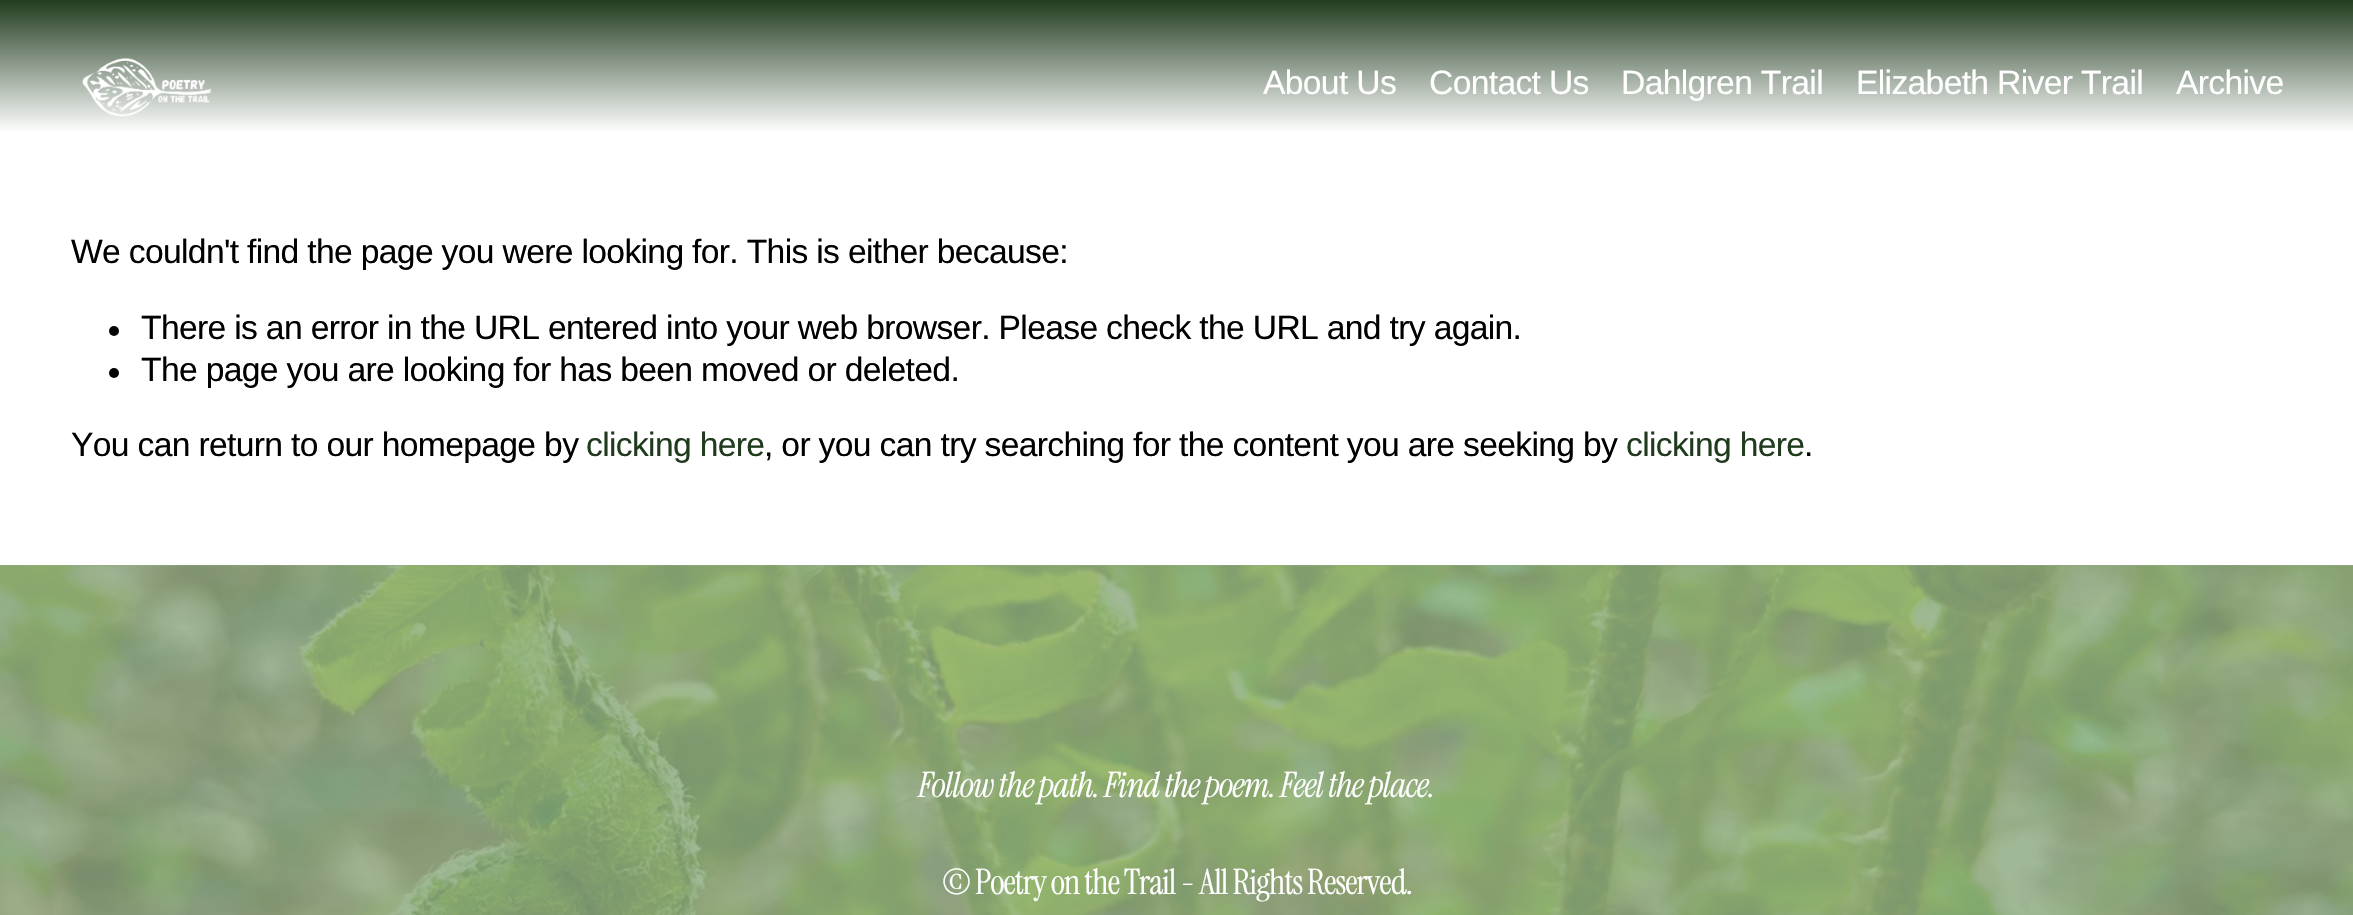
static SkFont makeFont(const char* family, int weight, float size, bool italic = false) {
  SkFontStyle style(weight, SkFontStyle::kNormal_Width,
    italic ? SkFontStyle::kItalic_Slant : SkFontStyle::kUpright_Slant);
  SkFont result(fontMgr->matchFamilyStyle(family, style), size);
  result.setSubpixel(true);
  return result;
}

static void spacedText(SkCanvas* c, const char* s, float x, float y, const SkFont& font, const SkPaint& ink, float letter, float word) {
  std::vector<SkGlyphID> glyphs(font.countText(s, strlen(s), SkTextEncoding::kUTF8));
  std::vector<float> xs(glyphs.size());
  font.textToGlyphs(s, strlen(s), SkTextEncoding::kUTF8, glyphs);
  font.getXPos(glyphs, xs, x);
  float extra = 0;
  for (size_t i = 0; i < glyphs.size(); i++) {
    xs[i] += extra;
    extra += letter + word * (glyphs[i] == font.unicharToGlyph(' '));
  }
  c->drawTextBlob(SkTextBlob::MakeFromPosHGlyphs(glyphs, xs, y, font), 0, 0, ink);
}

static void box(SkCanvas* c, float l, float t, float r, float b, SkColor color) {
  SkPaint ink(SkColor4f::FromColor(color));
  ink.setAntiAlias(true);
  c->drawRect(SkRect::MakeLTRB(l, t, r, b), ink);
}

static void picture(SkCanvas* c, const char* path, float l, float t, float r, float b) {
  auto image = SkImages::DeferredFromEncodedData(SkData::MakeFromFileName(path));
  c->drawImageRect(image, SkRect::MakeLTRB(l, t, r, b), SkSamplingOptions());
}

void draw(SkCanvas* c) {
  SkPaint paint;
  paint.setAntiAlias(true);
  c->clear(0xffffffff);
  paint.setColor(0xff000000);
  c->drawCircle(114, 331, 5, paint);
  c->drawCircle(114, 373, 5, paint);
  paint.setColor(0x26ffffff);
  paint.setMaskFilter(SkMaskFilter::MakeBlur(kNormal_SkBlurStyle, 104));
  c->drawRect(SkRect::MakeLTRB(-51, -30, 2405, 205), paint);
  paint.setMaskFilter(nullptr);
  {
    const SkColor colors[] = {0xff213c1f, 0xffffffff};
    const float stops[] = {0, 1};
    const SkPoint ends[] = {{1177, 0}, {1177, 133}};
    paint.setShader(SkGradientShader::MakeLinear(ends, colors, stops, 2, SkTileMode::kClamp));
    paint.setAlpha(255);
  }
  c->drawRect(SkRect::MakeLTRB(0, 0, 2353, 132), paint);
  picture(c, "img_01.png", 82, 58, 212, 117);
  SkFont face1 = makeFont("Liberation Sans", 400, 33.65f);
  paint.setShader(nullptr);
  paint.setColor(0xffffffff);
  spacedText(c, "About Us", 1263, 94, face1, paint, -0.67f, 0);
  spacedText(c, "Contact Us", 1429, 94, face1, paint, -0.67f, 0);
  spacedText(c, "Dahlgren Trail", 1621, 94, face1, paint, -0.67f, 0);
  spacedText(c, "Elizabeth River Trail", 1856, 94, face1, paint, -0.67f, 0);
  spacedText(c, "Archive", 2176, 94, face1, paint, -0.67f, 0);
  paint.setColor(0xff000000);
  spacedText(c, "We couldn't find the page you were looking for. This is either because:", 71, 263, face1, paint, -0.67f, 0);
  spacedText(c, "There is an error in the URL entered into your web browser. Please check the URL and try again.", 141, 339, face1, paint, -0.67f, 0);
  spacedText(c, "The page you are looking for has been moved or deleted.", 141, 381, face1, paint, -0.67f, 0);
  spacedText(c, "You can return to our homepage by", 71, 456, face1, paint, -0.67f, 0);
  paint.setColor(0xff1f3a1d);
  spacedText(c, "clicking here", 586, 456, face1, paint, -0.67f, 0);
  paint.setColor(0xff000000);
  spacedText(c, ", or you can try searching for the content you are seeking by", 764, 456, face1, paint, -0.67f, 0);
  paint.setColor(0xff1f3a1d);
  spacedText(c, "clicking here", 1626, 456, face1, paint, -0.67f, 0);
  paint.setColor(0xff000000);
  spacedText(c, ".", 1804, 456, face1, paint, -0.67f, 0);
  box(c, 0, 565, 2353, 566, 0xff8daa83);
  picture(c, "img_02.png", 0, 565, 2353, 915);
  SkFont face2 = makeFont("Instrument Serif", 400, 35, true);
  paint.setColor(0xffffffff);
  spacedText(c, "Follow the path. Find the poem. Feel the place.", 918, 797, face2, paint, -1.05f, 0);
  SkFont face3 = makeFont("Instrument Serif", 400, 35);
  spacedText(c, "© Poetry on the Trail - All Rights Reserved.", 942, 894, face3, paint, -1.05f, 0);
}
